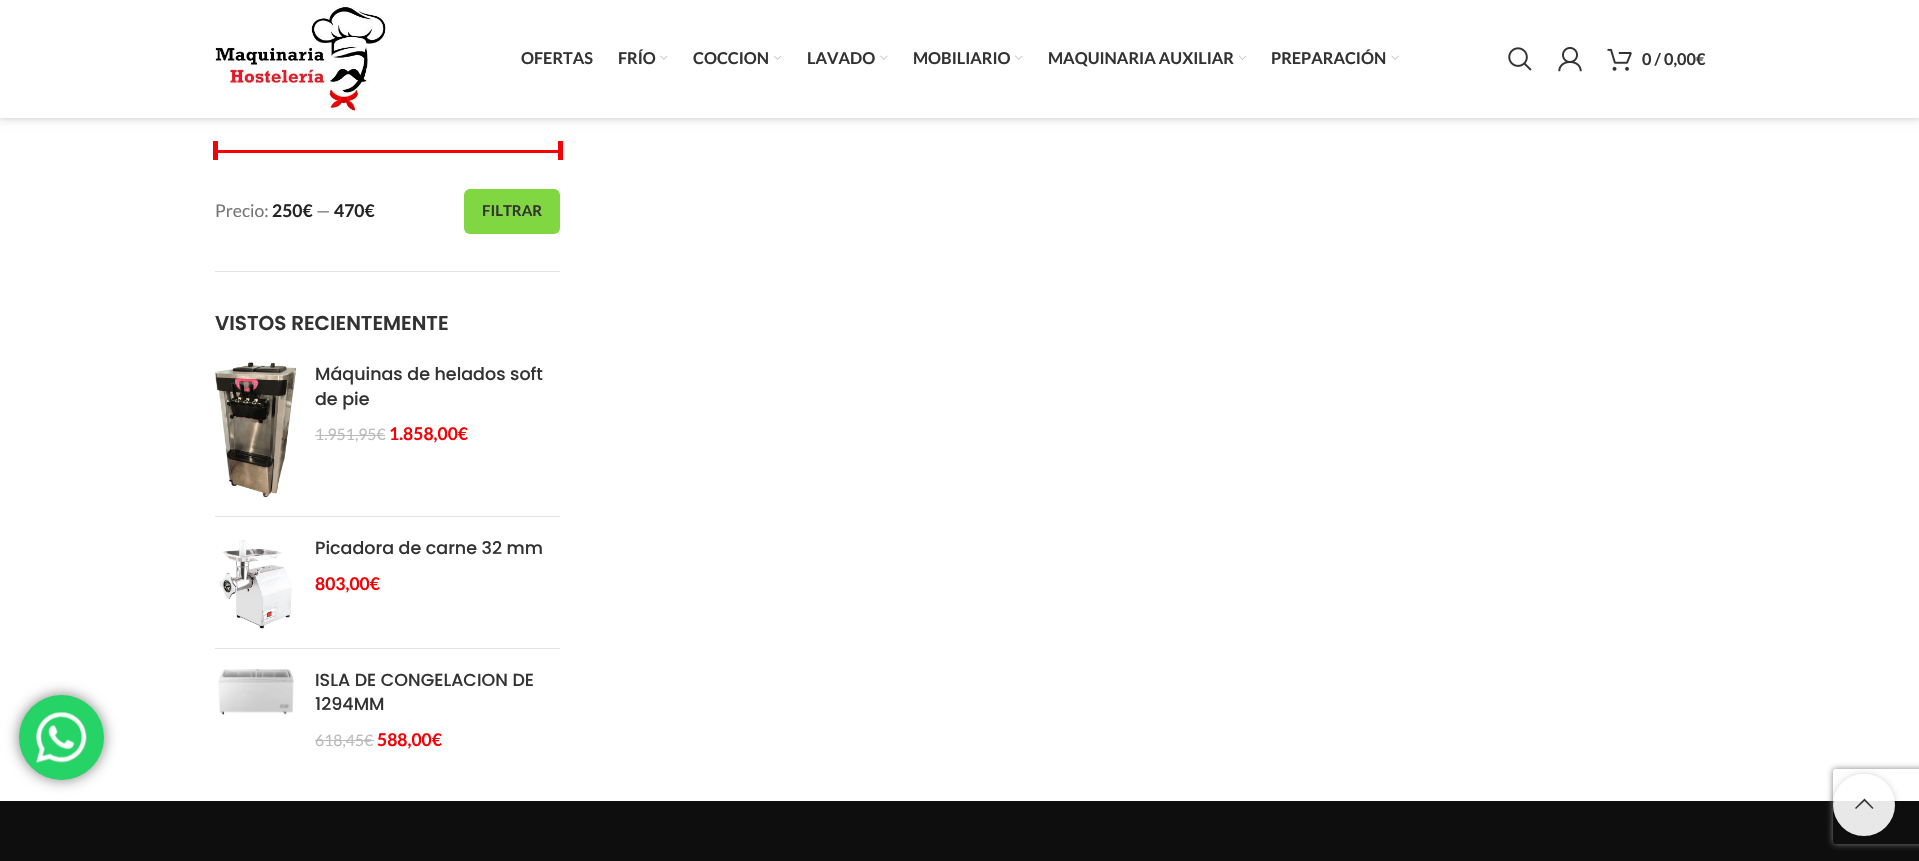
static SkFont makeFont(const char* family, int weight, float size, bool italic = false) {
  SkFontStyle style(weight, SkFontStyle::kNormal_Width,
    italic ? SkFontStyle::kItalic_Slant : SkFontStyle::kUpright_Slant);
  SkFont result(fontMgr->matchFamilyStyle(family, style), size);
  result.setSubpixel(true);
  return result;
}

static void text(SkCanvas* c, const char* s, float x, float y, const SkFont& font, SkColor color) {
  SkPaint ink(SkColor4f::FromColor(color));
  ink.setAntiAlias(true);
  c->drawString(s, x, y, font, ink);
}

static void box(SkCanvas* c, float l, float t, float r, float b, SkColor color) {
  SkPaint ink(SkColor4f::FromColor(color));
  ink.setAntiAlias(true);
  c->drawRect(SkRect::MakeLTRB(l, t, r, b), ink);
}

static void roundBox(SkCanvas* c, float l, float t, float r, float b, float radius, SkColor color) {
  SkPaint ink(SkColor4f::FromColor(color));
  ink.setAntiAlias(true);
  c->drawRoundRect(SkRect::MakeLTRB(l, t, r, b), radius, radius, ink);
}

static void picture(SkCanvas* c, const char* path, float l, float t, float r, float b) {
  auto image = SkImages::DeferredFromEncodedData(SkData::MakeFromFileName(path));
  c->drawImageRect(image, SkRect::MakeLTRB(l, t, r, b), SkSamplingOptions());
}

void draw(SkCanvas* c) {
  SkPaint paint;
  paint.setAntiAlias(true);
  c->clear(0xffffffff);
  box(c, 0, 801, 1919, 861, 0xff0e0e0e);
  paint.setColor(0x80000000);
  paint.setMaskFilter(SkMaskFilter::MakeBlur(kNormal_SkBlurStyle, 7));
  c->drawRoundRect(SkRect::MakeLTRB(19, 695, 104, 780), 42.5f, 42.5f, paint);
  paint.setMaskFilter(nullptr);
  paint.setColor(0xff25d366);
  c->drawCircle(61.5f, 737.5f, 42.5f, paint);
  picture(c, "img_01.png", 36, 712, 87, 763);
  paint.setColor(0x1a000000);
  paint.setMaskFilter(SkMaskFilter::MakeBlur(kNormal_SkBlurStyle, 2));
  c->drawRect(SkRect::MakeLTRB(0, 1, 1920, 119), paint);
  paint.setMaskFilter(nullptr);
  paint.setMaskFilter(SkMaskFilter::MakeBlur(kNormal_SkBlurStyle, 5));
  c->drawRect(SkRect::MakeLTRB(0, 1, 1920, 119), paint);
  paint.setMaskFilter(nullptr);
  box(c, 0, 0, 1919, 118, 0xffffffff);
  picture(c, "img_02.png", 215, 7, 386, 112);
  SkFont face1 = makeFont("Lato", 700, 16.25f);
  text(c, "OFERTAS", 521, 64, face1, 0xff333333);
  text(c, "FRÍO", 618, 64, face1, 0xff333333);
  picture(c, "img_03.png", 660, 55, 668, 60);
  text(c, "COCCION", 693, 64, face1, 0xff333333);
  picture(c, "img_04.png", 774, 55, 782, 60);
  text(c, "LAVADO", 807, 64, face1, 0xff333333);
  picture(c, "img_03.png", 880, 55, 888, 60);
  text(c, "MOBILIARIO", 913, 64, face1, 0xff333333);
  picture(c, "img_03.png", 1015, 55, 1023, 60);
  text(c, "MAQUINARIA AUXILIAR", 1048, 64, face1, 0xff333333);
  picture(c, "img_04.png", 1239, 55, 1247, 60);
  text(c, "PREPARACIÓN", 1271, 64, face1, 0xff333333);
  picture(c, "img_05.png", 1391, 55, 1399, 60);
  picture(c, "img_06.png", 1508, 47, 1532, 71);
  picture(c, "img_07.png", 1558, 47, 1582, 72);
  picture(c, "img_08.png", 1607, 48, 1632, 71);
  text(c, "0 / 0,00€", 1642, 65, face1, 0xff333333);
  box(c, 215, 271, 560, 272, 0xffe4e4e4);
  box(c, 215, 150, 560, 153, 0xfff60105);
  box(c, 213, 141, 218, 160, 0xfff60105);
  box(c, 558, 141, 563, 160, 0xfff60105);
  SkFont face2 = makeFont("Lato", 400, 17.5f);
  text(c, "Precio:", 215, 217, face2, 0xff767676);
  SkFont face3 = makeFont("Lato", 700, 17.5f);
  text(c, "250€", 272, 217, face3, 0xff242424);
  text(c, "—", 316, 217, face2, 0xff767676);
  text(c, "470€", 334, 217, face3, 0xff242424);
  roundBox(c, 464, 189, 560, 234, 6, 0xff81d742);
  SkFont face4 = makeFont("Lato", 700, 15);
  text(c, "FILTRAR", 482, 216, face4, 0xff333333);
  SkFont face5 = makeFont("Poppins", 600, 20);
  text(c, "VISTOS RECIENTEMENTE", 215, 330, face5, 0xff333333);
  box(c, 215, 516, 560, 517, 0xffe4e4e4);
  picture(c, "img_09.png", 215, 362, 297, 498);
  SkFont face6 = makeFont("Poppins", 500, 17.5f);
  text(c, "Máquinas de helados soft", 315, 380, face6, 0xff333333);
  text(c, "de pie", 315, 405, face6, 0xff333333);
  SkFont face7 = makeFont("Lato", 400, 15.75f);
  text(c, "1.951,95€", 315, 440, face7, 0xffbbbbbb);
  box(c, 315, 435, 385, 436, 0xffbbbbbb);
  text(c, "1.858,00€", 389, 440, face3, 0xfff60105);
  box(c, 215, 648, 560, 649, 0xffe4e4e4);
  picture(c, "img_10.png", 219, 540, 292, 629);
  text(c, "Picadora de carne 32 mm", 315, 554, face6, 0xff333333);
  text(c, "803,00€", 315, 590, face3, 0xfff60105);
  picture(c, "img_11.png", 218, 669, 294, 715);
  text(c, "ISLA DE CONGELACION DE", 315, 686, face6, 0xff333333);
  text(c, "1294MM", 315, 710, face6, 0xff333333);
  text(c, "618,45€", 315, 746, face7, 0xffbbbbbb);
  box(c, 315, 740, 374, 741, 0xffbbbbbb);
  text(c, "588,00€", 377, 746, face3, 0xfff60105);
  c->save();
  c->clipPath(SkPathBuilder(SkPathFillType::kEvenOdd).moveTo(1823, 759).lineTo(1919, 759).lineTo(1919, 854).lineTo(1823, 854).close().moveTo(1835.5f, 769).lineTo(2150.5f, 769).cubicTo(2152, 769, 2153, 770, 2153, 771.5f).lineTo(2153, 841.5f).cubicTo(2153, 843, 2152, 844, 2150.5f, 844).lineTo(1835.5f, 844).cubicTo(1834, 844, 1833, 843, 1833, 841.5f).lineTo(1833, 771.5f).cubicTo(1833, 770, 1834, 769, 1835.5f, 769).close().detach(), true);
  paint.setColor(0xff808080);
  paint.setMaskFilter(SkMaskFilter::MakeBlur(kNormal_SkBlurStyle, 3));
  c->drawRoundRect(SkRect::MakeLTRB(1833, 769, 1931, 844), 2.5f, 2.5f, paint);
  paint.setMaskFilter(nullptr);
  c->restore();
  c->save();
  c->clipPath(SkPathBuilder(SkPathFillType::kEvenOdd).moveTo(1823, 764).lineTo(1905, 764).lineTo(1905, 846).lineTo(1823, 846).close().moveTo(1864, 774).cubicTo(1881, 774, 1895, 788, 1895, 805).cubicTo(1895, 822, 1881, 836, 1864, 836).cubicTo(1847, 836, 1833, 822, 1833, 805).cubicTo(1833, 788, 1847, 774, 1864, 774).close().detach(), true);
  paint.setColor(0x2b000000);
  paint.setMaskFilter(SkMaskFilter::MakeBlur(kNormal_SkBlurStyle, 3));
  c->drawRoundRect(SkRect::MakeLTRB(1833, 774, 1895, 836), 31, 31, paint);
  paint.setMaskFilter(nullptr);
  c->restore();
  paint.setColor(0xe6ffffff);
  c->drawCircle(1864, 805, 31, paint);
  paint.setColor(0xff333333);
  c->drawPath(SkPathBuilder().moveTo(1872.5f, 809).lineTo(1873.5f, 808).lineTo(1864.5f, 798.5f).lineTo(1855, 808).lineTo(1856, 809).lineTo(1864.5f, 801).close().detach(), paint);
}
